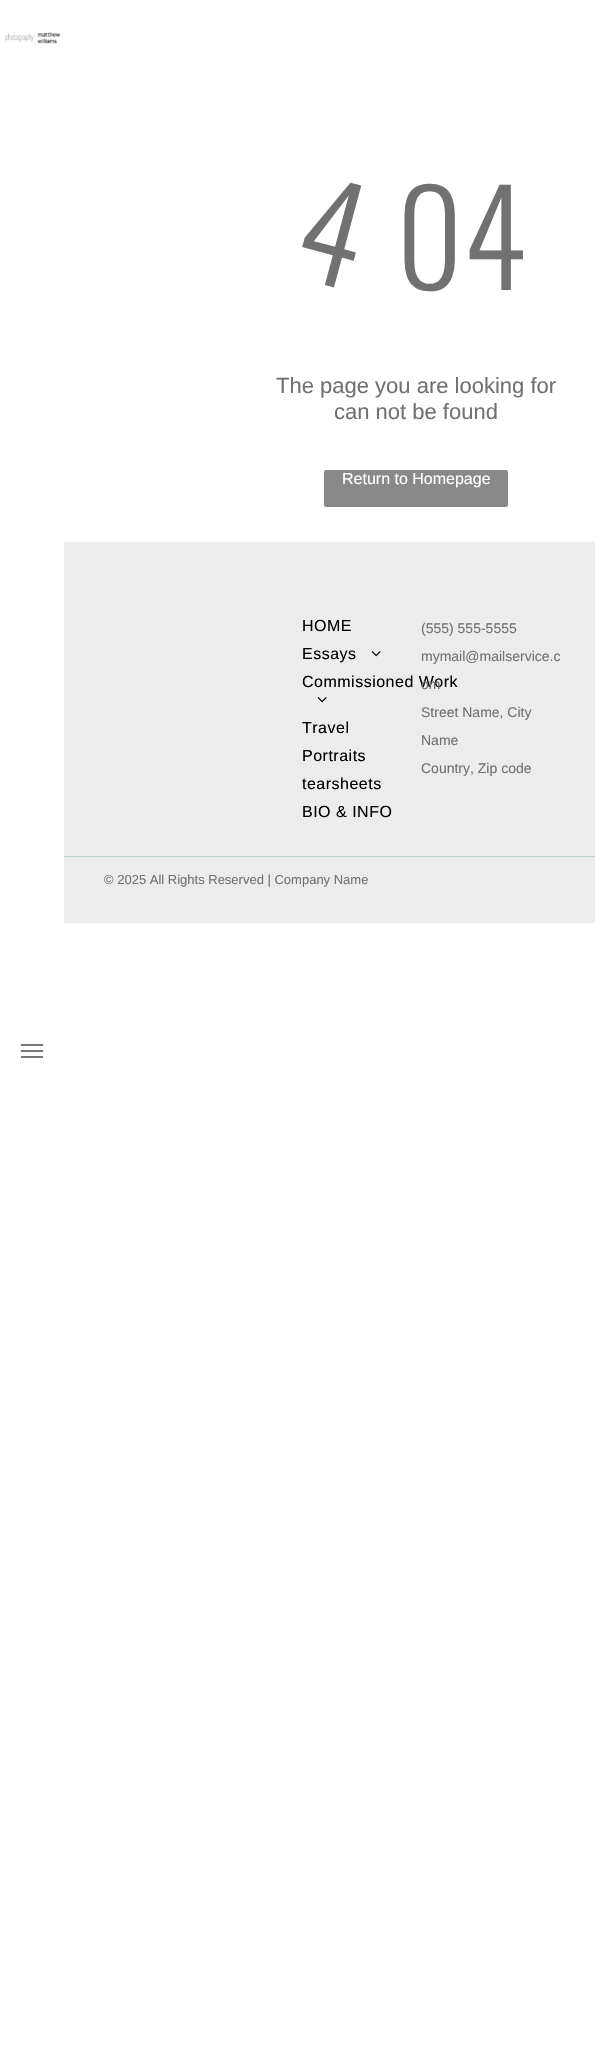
static SkFont makeFont(const char* family, int weight, float size, bool italic = false) {
  SkFontStyle style(weight, SkFontStyle::kNormal_Width,
    italic ? SkFontStyle::kItalic_Slant : SkFontStyle::kUpright_Slant);
  SkFont result(fontMgr->matchFamilyStyle(family, style), size);
  result.setSubpixel(true);
  return result;
}

static void text(SkCanvas* c, const char* s, float x, float y, const SkFont& font, SkColor color) {
  SkPaint ink(SkColor4f::FromColor(color));
  ink.setAntiAlias(true);
  c->drawString(s, x, y, font, ink);
}

static void spacedText(SkCanvas* c, const char* s, float x, float y, const SkFont& font, const SkPaint& ink, float letter, float word) {
  std::vector<SkGlyphID> glyphs(font.countText(s, strlen(s), SkTextEncoding::kUTF8));
  std::vector<float> xs(glyphs.size());
  font.textToGlyphs(s, strlen(s), SkTextEncoding::kUTF8, glyphs);
  font.getXPos(glyphs, xs, x);
  float extra = 0;
  for (size_t i = 0; i < glyphs.size(); i++) {
    xs[i] += extra;
    extra += letter + word * (glyphs[i] == font.unicharToGlyph(' '));
  }
  c->drawTextBlob(SkTextBlob::MakeFromPosHGlyphs(glyphs, xs, y, font), 0, 0, ink);
}

static void box(SkCanvas* c, float l, float t, float r, float b, SkColor color) {
  SkPaint ink(SkColor4f::FromColor(color));
  ink.setAntiAlias(true);
  c->drawRect(SkRect::MakeLTRB(l, t, r, b), ink);
}

static void roundBox(SkCanvas* c, float l, float t, float r, float b, float radius, SkColor color) {
  SkPaint ink(SkColor4f::FromColor(color));
  ink.setAntiAlias(true);
  c->drawRoundRect(SkRect::MakeLTRB(l, t, r, b), radius, radius, ink);
}

static void picture(SkCanvas* c, const char* path, float l, float t, float r, float b) {
  auto image = SkImages::DeferredFromEncodedData(SkData::MakeFromFileName(path));
  c->drawImageRect(image, SkRect::MakeLTRB(l, t, r, b), SkSamplingOptions());
}

void draw(SkCanvas* c) {
  SkPaint paint;
  paint.setAntiAlias(true);
  c->clear(0xffffffff);
  picture(c, "img_01.png", 5, 31, 60, 45);
  box(c, 21, 1044, 43, 1046, 0xff787878);
  box(c, 21, 1050, 43, 1052, 0xff787878);
  box(c, 21, 1056, 43, 1058, 0xff787878);
  SkFont face1 = makeFont("Oswald", 300, 130);
  c->save();
  c->rotate(15, 288, 275);
  text(c, "4", 288, 275, face1, 0xff727070);
  c->restore();
  text(c, "04", 396, 290, face1, 0xff727070);
  SkFont face2 = makeFont("Liberation Sans", 400, 22);
  text(c, "The page you are looking for", 276, 393, face2, 0xff727070);
  text(c, "can not be found", 334, 419, face2, 0xff727070);
  roundBox(c, 324, 470, 508, 507, 2, 0xff898989);
  SkFont face3 = makeFont("Liberation Sans", 400, 16);
  text(c, "Return to Homepage", 342, 484, face3, 0xffffffff);
  box(c, 64, 542, 595, 923, 0xffececec);
  paint.setColor(0xff000000);
  spacedText(c, "HOME", 302, 631, face3, paint, 0.5f, 0);
  spacedText(c, "Essays", 302, 659, face3, paint, 0.5f, 0);
  picture(c, "img_02.png", 371, 651, 381, 657);
  spacedText(c, "Commissioned Work", 302, 687, face3, paint, 0.5f, 0);
  picture(c, "img_02.png", 317, 697, 327, 703);
  spacedText(c, "Travel", 302, 733, face3, paint, 0.5f, 0);
  spacedText(c, "Portraits", 302, 761, face3, paint, 0.5f, 0);
  spacedText(c, "tearsheets", 302, 789, face3, paint, 0.5f, 0);
  spacedText(c, "BIO & INFO", 302, 817, face3, paint, 0.5f, 0);
  SkFont face4 = makeFont("Liberation Sans", 400, 14);
  text(c, "(555) 555-5555", 421, 633, face4, 0xff727070);
  text(c, "mymail@mailservice.c", 421, 661, face4, 0xff727070);
  text(c, "om", 421, 689, face4, 0xff727070);
  text(c, "Street Name, City", 421, 717, face4, 0xff727070);
  text(c, "Name", 421, 745, face4, 0xff727070);
  text(c, "Country, Zip code", 421, 773, face4, 0xff727070);
  box(c, 64, 856, 595, 857, 0xffb7d2d3);
  SkFont face5 = makeFont("Liberation Sans", 400, 13);
  text(c, "© 2025 All Rights Reserved | Company Name", 104, 884, face5, 0xff727070);
}
